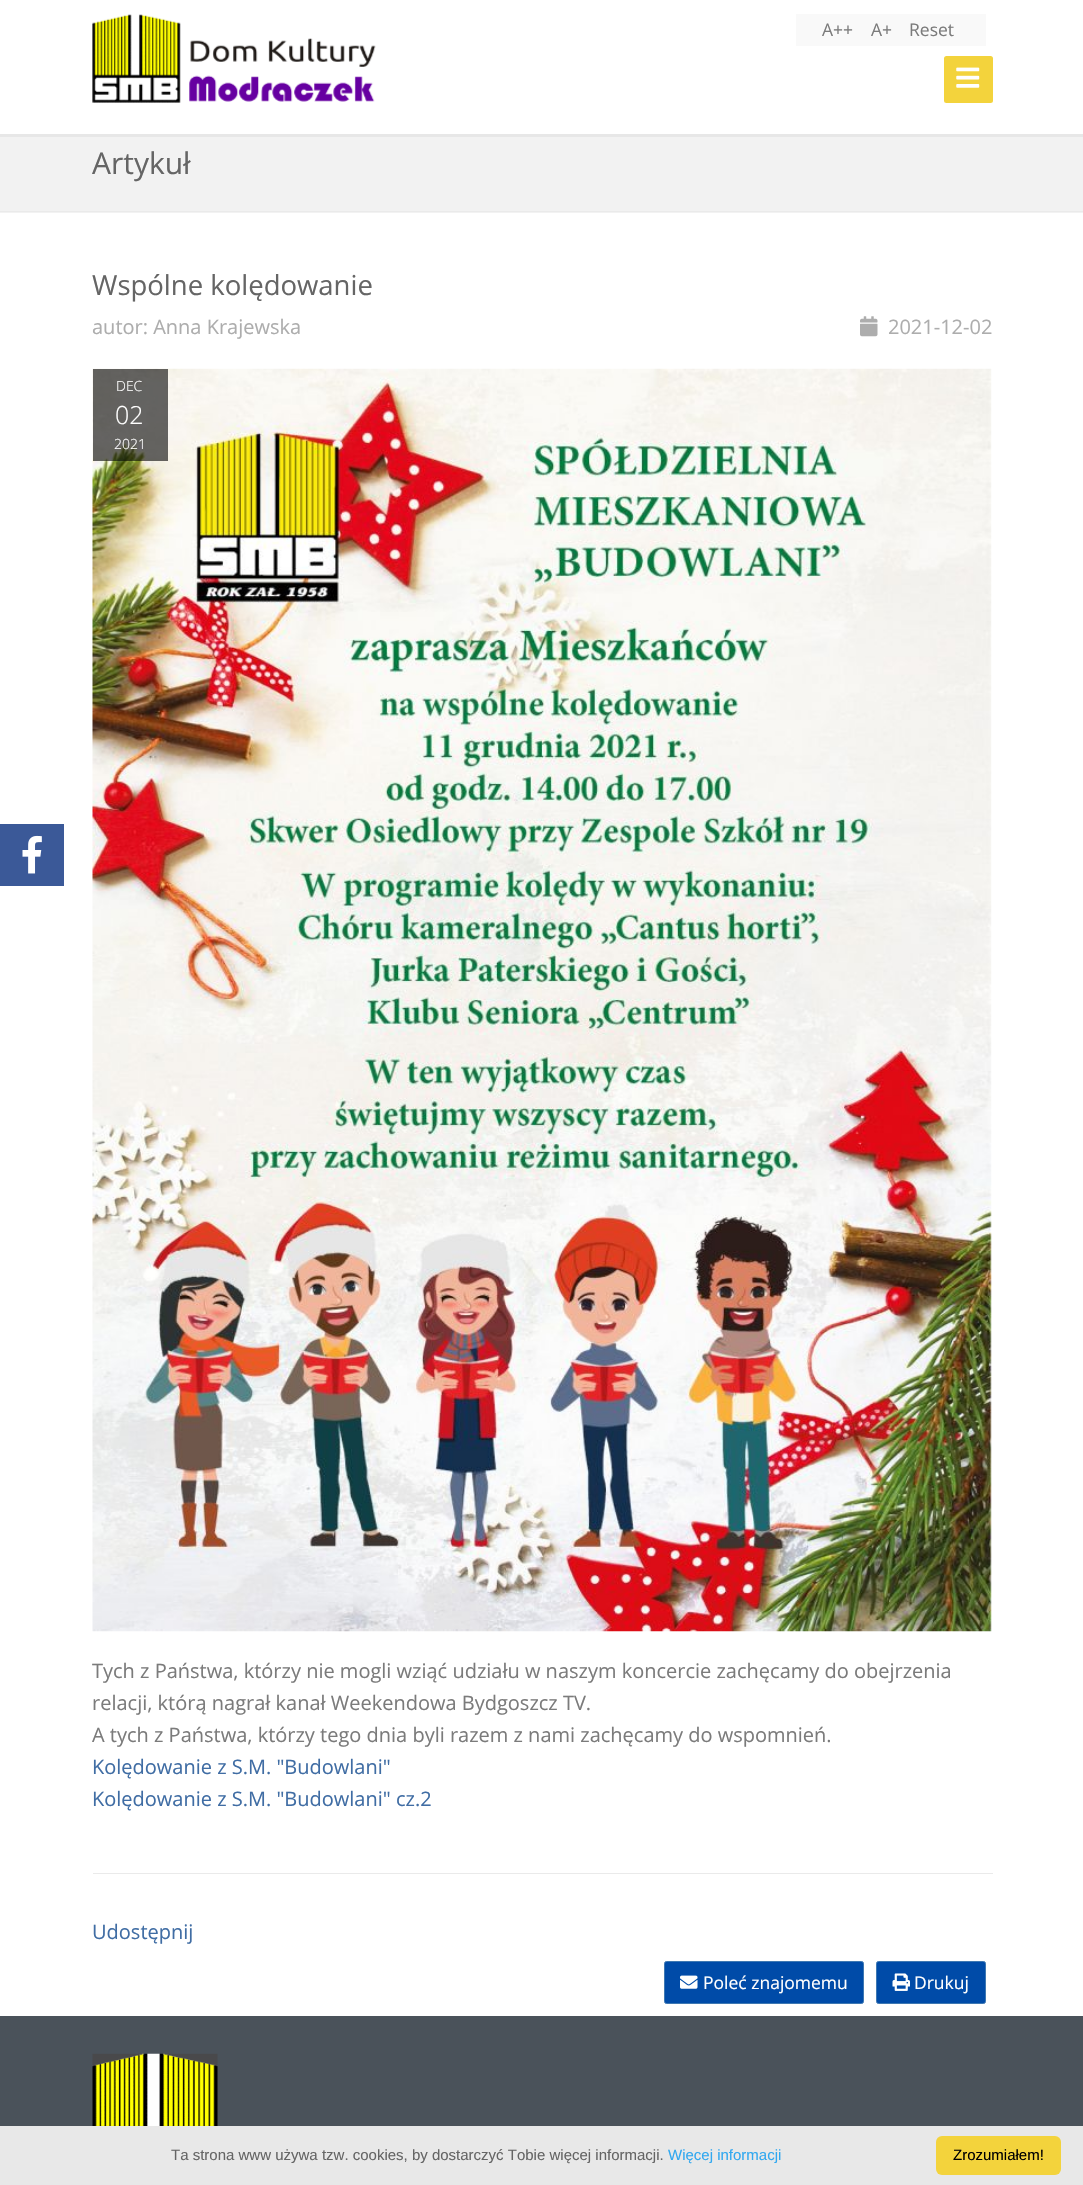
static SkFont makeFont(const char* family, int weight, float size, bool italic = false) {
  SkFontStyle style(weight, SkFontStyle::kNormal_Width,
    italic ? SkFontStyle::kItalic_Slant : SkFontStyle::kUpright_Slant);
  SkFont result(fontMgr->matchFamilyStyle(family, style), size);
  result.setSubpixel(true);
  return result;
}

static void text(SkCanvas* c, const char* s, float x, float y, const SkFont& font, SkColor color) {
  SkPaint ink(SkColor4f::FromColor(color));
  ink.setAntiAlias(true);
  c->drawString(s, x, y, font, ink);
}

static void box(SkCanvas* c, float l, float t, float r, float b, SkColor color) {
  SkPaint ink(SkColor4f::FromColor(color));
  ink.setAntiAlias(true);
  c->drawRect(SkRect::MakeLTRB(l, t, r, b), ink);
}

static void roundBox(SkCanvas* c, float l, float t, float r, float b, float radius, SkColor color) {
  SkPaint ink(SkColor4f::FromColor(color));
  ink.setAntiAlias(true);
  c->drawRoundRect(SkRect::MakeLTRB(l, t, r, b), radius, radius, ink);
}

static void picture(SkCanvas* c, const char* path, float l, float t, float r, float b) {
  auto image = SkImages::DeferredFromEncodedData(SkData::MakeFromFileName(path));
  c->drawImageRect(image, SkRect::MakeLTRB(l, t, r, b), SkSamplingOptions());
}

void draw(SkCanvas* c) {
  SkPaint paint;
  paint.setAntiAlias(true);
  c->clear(0xffffffff);
  box(c, 0, 824, 64, 886, 0xff3b5998);
  picture(c, "img_01.png", 22, 835, 42, 874);
  box(c, 0, 134, 1083, 137, 0xffe7e7e7);
  picture(c, "img_02.png", 92, 14, 181, 103);
  picture(c, "img_03.png", 189, 38, 376, 102);
  roundBox(c, 944, 56, 993, 103, 2.5f, 0xfff3d33c);
  picture(c, "img_04.png", 956, 67, 980, 88);
  box(c, 796, 14, 986, 46, 0xfff9f9f9);
  SkFont face1 = makeFont("Open Sans", 400, 17.5f);
  text(c, "A++", 822, 36, face1, 0xff7b7b7b);
  text(c, "A+", 871, 36, face1, 0xff7b7b7b);
  text(c, "Reset", 909, 36, face1, 0xff7b7b7b);
  box(c, 0, 137, 1083, 213, 0xfff2f2f2);
  box(c, 0, 211, 1083, 212, 0xffeaeaea);
  SkFont face2 = makeFont("Open Sans", 400, 30);
  text(c, "Artykuł", 92, 174, face2, 0xff656565);
  SkFont face3 = makeFont("Open Sans", 400, 27.5f);
  text(c, "Wspólne kolędowanie", 92, 295, face3, 0xff656565);
  SkFont face4 = makeFont("Open Sans", 400, 20);
  text(c, "autor: Anna Krajewska", 92, 334, face4, 0xffadadad);
  picture(c, "img_05.png", 860, 316, 878, 337);
  text(c, "2021-12-02", 888, 334, face4, 0xffadadad);
  picture(c, "img_06.png", 92, 368, 992, 1632);
  box(c, 93, 369, 168, 461, 0x99000000);
  SkFont face5 = makeFont("Open Sans", 300, 14);
  text(c, "DEC", 116, 391, face5, 0xffffffff);
  SkFont face6 = makeFont("Open Sans", 300, 25);
  text(c, "02", 115, 424, face6, 0xffffffff);
  text(c, "2021", 114, 449, face5, 0xffffffff);
  text(c, "Tych z Państwa, którzy nie mogli wziąć udziału w naszym koncercie zachęcamy do obejrzenia", 92, 1678, face4, 0xff7b7b7b);
  text(c, "relacji, którą nagrał kanał Weekendowa Bydgoszcz TV.", 92, 1710, face4, 0xff7b7b7b);
  text(c, "A tych z Państwa, którzy tego dnia byli razem z nami zachęcamy do wspomnień.", 92, 1742, face4, 0xff7b7b7b);
  text(c, "Kolędowanie z S.M. \"Budowlani\"", 92, 1774, face4, 0xff406da4);
  text(c, "Kolędowanie z S.M. \"Budowlani\" cz.2", 92, 1806, face4, 0xff406da4);
  box(c, 93, 1873, 993, 1874, 0xffeaeaea);
  text(c, "Udostępnij", 92, 1939, face4, 0xff406da4);
  paint.setColor(0xff004ba8);
  c->drawRoundRect(SkRect::MakeLTRB(664.5f, 1961.5f, 863.5f, 2003.5f), 2, 2, paint);
  paint.setStyle(SkPaint::kStroke_Style);
  paint.setStrokeWidth(1);
  paint.setColor(0xff3e78b2);
  c->drawRoundRect(SkRect::MakeLTRB(664.5f, 1961.5f, 863.5f, 2003.5f), 2, 2, paint);
  picture(c, "img_07.png", 680, 1975, 698, 1989);
  text(c, "Poleć znajomemu", 703, 1989, face1, 0xffffffff);
  paint.setStyle(SkPaint::kFill_Style);
  paint.setColor(0xff004ba8);
  c->drawRoundRect(SkRect::MakeLTRB(876.5f, 1961.5f, 985.5f, 2003.5f), 2, 2, paint);
  paint.setStyle(SkPaint::kStroke_Style);
  paint.setColor(0xff3e78b2);
  c->drawRoundRect(SkRect::MakeLTRB(876.5f, 1961.5f, 985.5f, 2003.5f), 2, 2, paint);
  picture(c, "img_08.png", 892, 1973, 910, 1991);
  text(c, "Drukuj", 914, 1989, face1, 0xffffffff);
  box(c, 0, 2016, 1083, 2126, 0xff4a525a);
  picture(c, "img_09.png", 92, 2053, 218, 2126);
  box(c, 0, 2126, 1083, 2185, 0xffe8e8e8);
  SkFont face7 = makeFont("Liberation Sans", 400, 15);
  text(c, "Ta strona www używa tzw. cookies, by dostarczyć Tobie więcej informacji.", 171, 2160, face7, 0xff656565);
  text(c, "Więcej informacji", 668, 2160, face7, 0xff31a8f0);
  roundBox(c, 936, 2136, 1061, 2175, 6, 0xfff3d33c);
  text(c, "Zrozumiałem!", 953, 2160, face7, 0xff000000);
}
